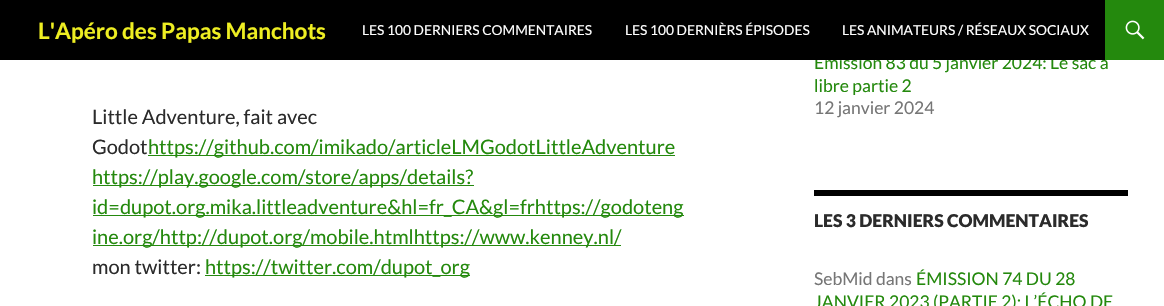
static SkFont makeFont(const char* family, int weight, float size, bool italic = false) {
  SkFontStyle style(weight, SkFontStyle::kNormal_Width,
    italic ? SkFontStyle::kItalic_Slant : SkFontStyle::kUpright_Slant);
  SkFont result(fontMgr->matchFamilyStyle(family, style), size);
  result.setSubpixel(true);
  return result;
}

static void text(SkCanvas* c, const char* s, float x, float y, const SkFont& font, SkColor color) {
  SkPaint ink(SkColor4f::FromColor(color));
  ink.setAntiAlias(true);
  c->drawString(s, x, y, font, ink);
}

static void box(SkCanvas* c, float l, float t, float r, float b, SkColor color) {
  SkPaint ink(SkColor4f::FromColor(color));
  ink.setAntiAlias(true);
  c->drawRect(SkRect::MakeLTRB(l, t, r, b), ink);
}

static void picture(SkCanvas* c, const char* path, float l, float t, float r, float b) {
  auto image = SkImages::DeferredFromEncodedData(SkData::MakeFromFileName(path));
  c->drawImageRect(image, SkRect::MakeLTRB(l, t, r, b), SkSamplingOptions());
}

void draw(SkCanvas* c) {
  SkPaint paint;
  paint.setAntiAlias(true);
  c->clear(0xffffffff);
  SkFont face1 = makeFont("Lato", 400, 17.5f);
  text(c, "Émission 83 du 5 janvier 2024: Le sac à", 814, 69, face1, 0xff24890d);
  box(c, 0, 0, 1105, 60, 0xff000000);
  SkFont face2 = makeFont("Lato", 700, 22.5f);
  text(c, "L'Apéro des Papas Manchots", 38, 39, face2, 0xffeeee22);
  SkFont face3 = makeFont("Lato", 400, 13.75f);
  text(c, "LES 100 DERNIERS COMMENTAIRES", 362, 35, face3, 0xffffffff);
  text(c, "LES 100 DERNIÈRS ÉPISODES", 625, 35, face3, 0xffffffff);
  text(c, "LES ANIMATEURS / RÉSEAUX SOCIAUX", 842, 35, face3, 0xffffffff);
  box(c, 1105, 0, 1164, 60, 0xff24890d);
  picture(c, "img_01.png", 1125, 20, 1145, 40);
  SkFont face4 = makeFont("Lato", 400, 20);
  text(c, "Little Adventure, fait avec", 92, 124, face4, 0xff2b2b2b);
  text(c, "Godot", 92, 154, face4, 0xff2b2b2b);
  box(c, 148, 155, 675, 156, 0xff24890d);
  text(c, "https://github.com/imikado/articleLMGodotLittleAdventure", 148, 154, face4, 0xff24890d);
  box(c, 93, 185, 474, 186, 0xff24890d);
  text(c, "https://play.google.com/store/apps/details?", 92, 184, face4, 0xff24890d);
  box(c, 93, 215, 684, 216, 0xff24890d);
  text(c, "id=dupot.org.mika.littleadventure&hl=fr_CA&gl=frhttps://godoteng", 92, 214, face4, 0xff24890d);
  box(c, 93, 245, 621, 246, 0xff24890d);
  text(c, "ine.org/http://dupot.org/mobile.htmlhttps://www.kenney.nl/", 92, 244, face4, 0xff24890d);
  text(c, "mon twitter:", 92, 274, face4, 0xff2b2b2b);
  box(c, 205, 275, 470, 276, 0xff24890d);
  text(c, "https://twitter.com/dupot_org", 205, 274, face4, 0xff24890d);
  text(c, "libre partie 2", 814, 92, face1, 0xff24890d);
  text(c, "12 janvier 2024", 814, 114, face1, 0xff767676);
  box(c, 814, 190, 1128, 196, 0xff000000);
  SkFont face5 = makeFont("Lato", 900, 17.5f);
  text(c, "LES 3 DERNIERS COMMENTAIRES", 814, 227, face5, 0xff2b2b2b);
  text(c, "SebMid dans", 814, 285, face1, 0xff767676);
  text(c, "ÉMISSION 74 DU 28", 916, 285, face1, 0xff24890d);
  text(c, "JANVIER 2023 (PARTIE 2): L’ÉCHO DE", 814, 308, face1, 0xff24890d);
}
